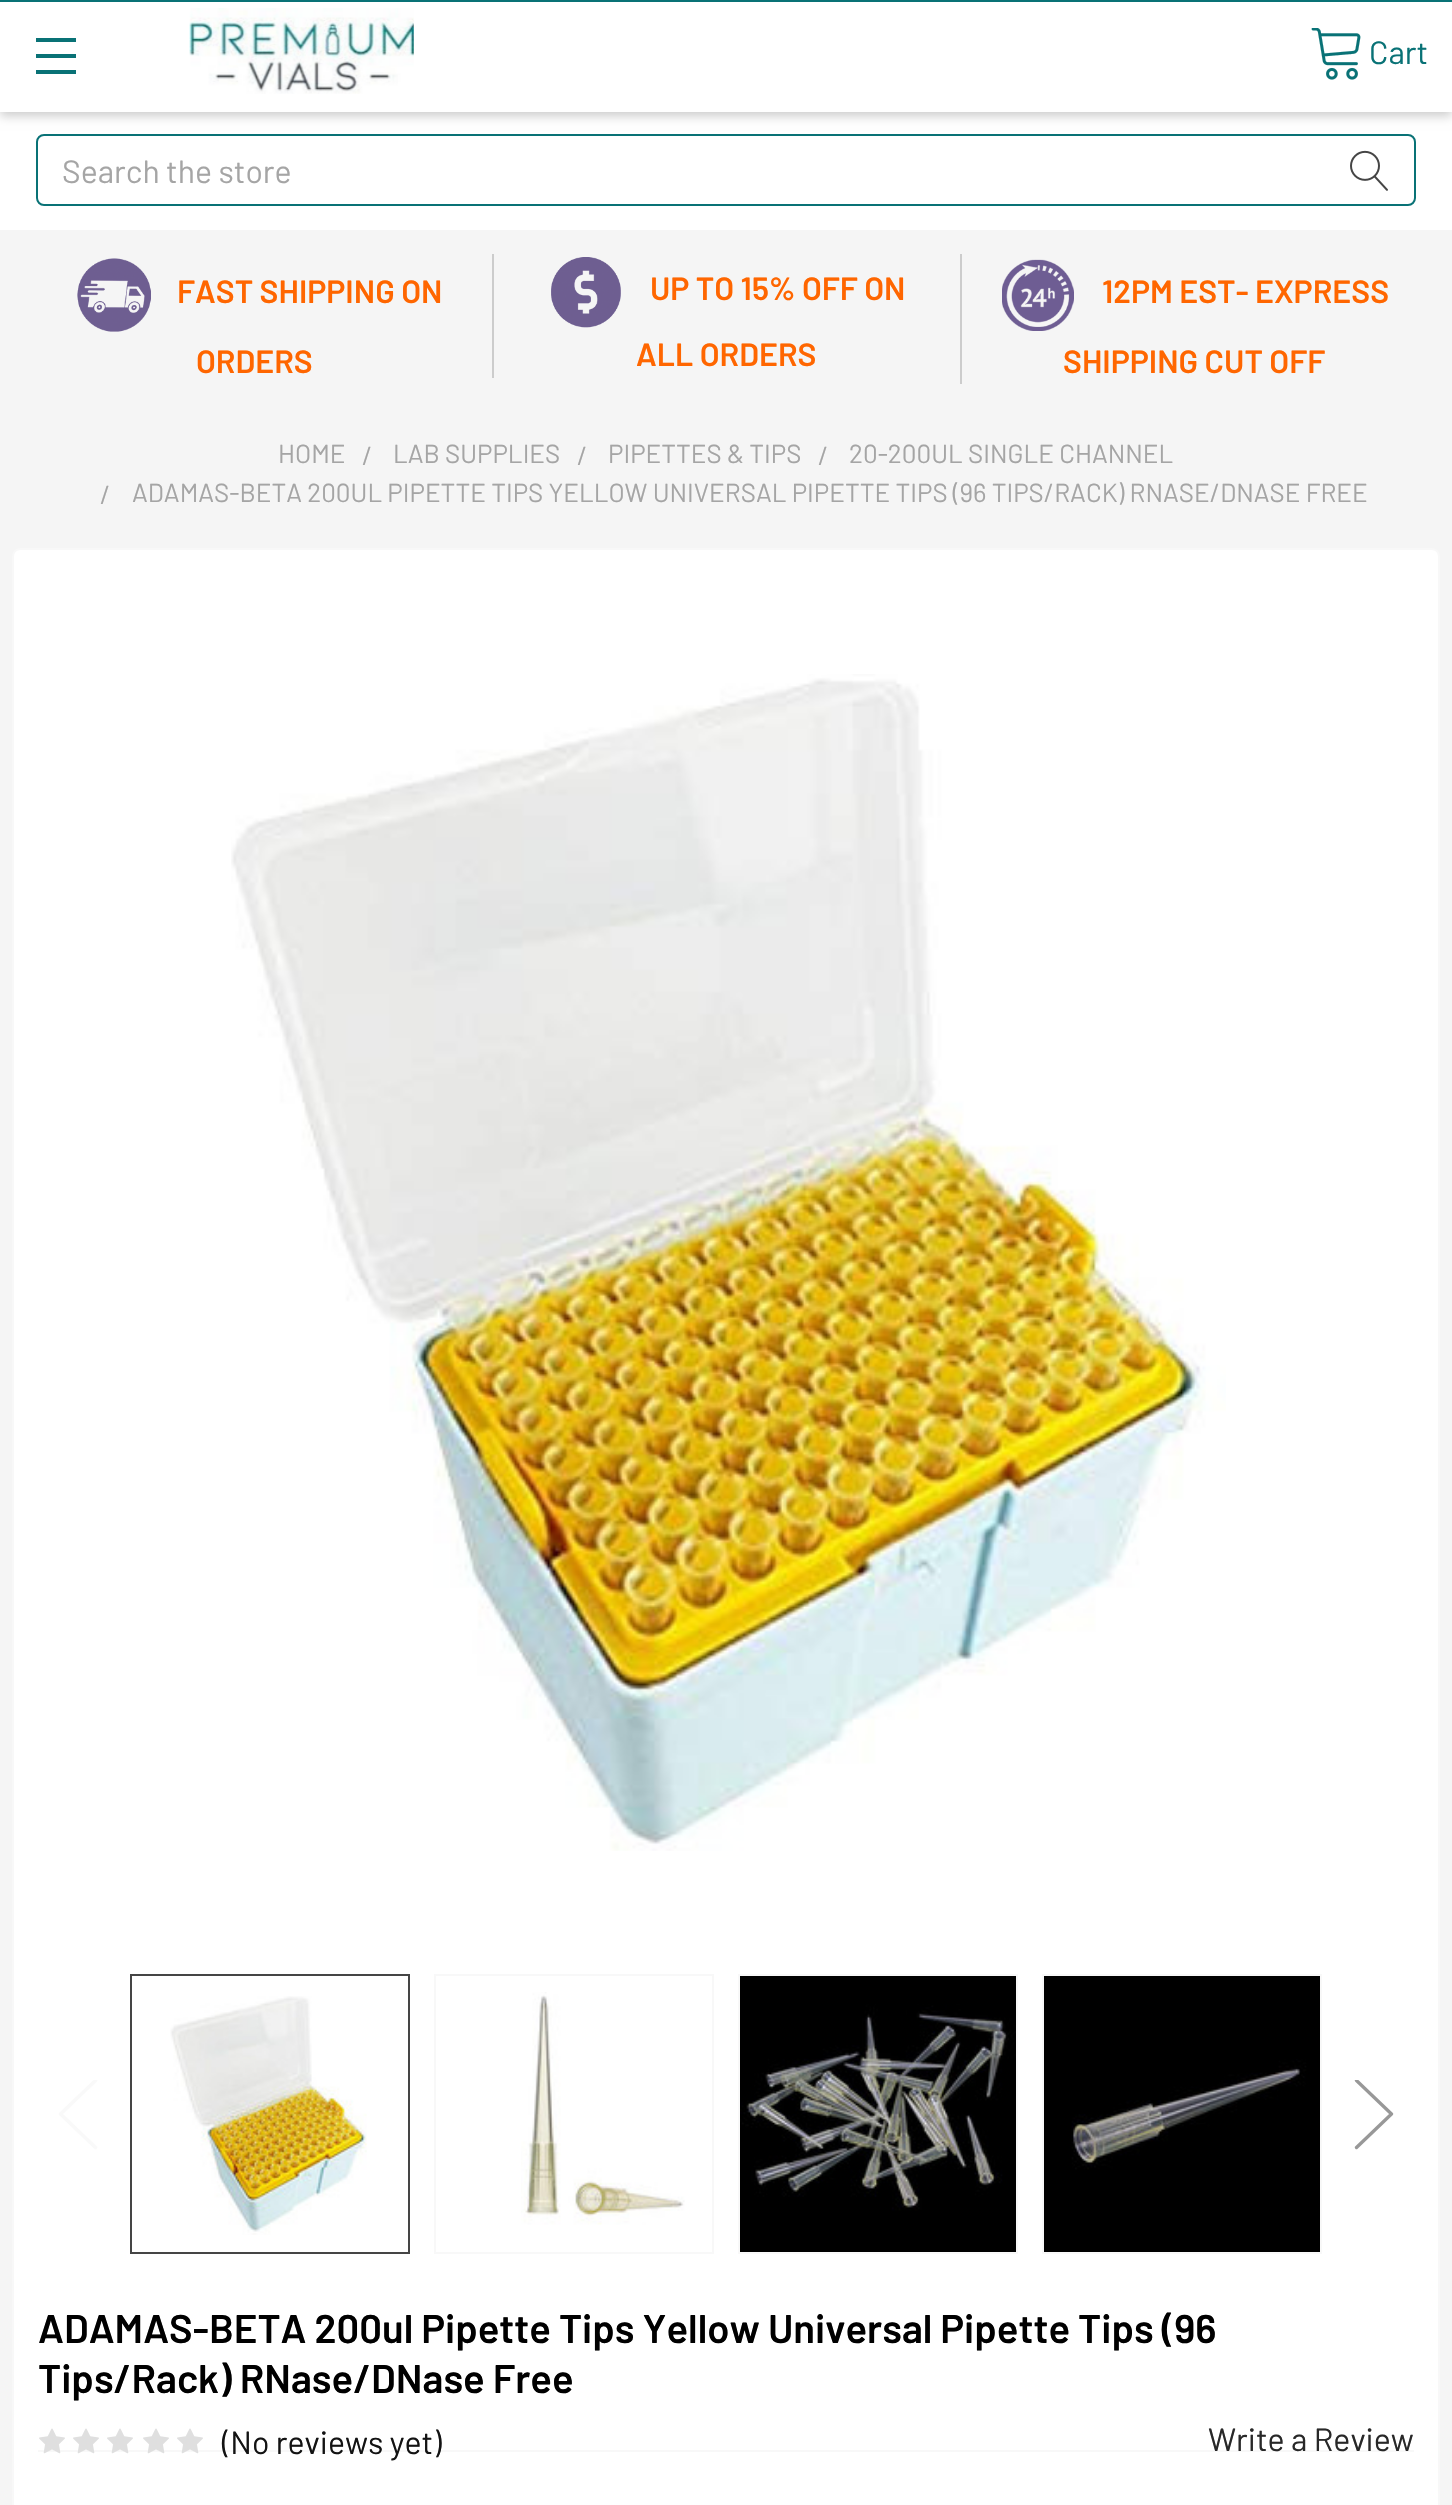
static SkFont makeFont(const char* family, int weight, float size, bool italic = false) {
  SkFontStyle style(weight, SkFontStyle::kNormal_Width,
    italic ? SkFontStyle::kItalic_Slant : SkFontStyle::kUpright_Slant);
  SkFont result(fontMgr->matchFamilyStyle(family, style), size);
  result.setSubpixel(true);
  return result;
}

static void text(SkCanvas* c, const char* s, float x, float y, const SkFont& font, SkColor color) {
  SkPaint ink(SkColor4f::FromColor(color));
  ink.setAntiAlias(true);
  c->drawString(s, x, y, font, ink);
}

static void box(SkCanvas* c, float l, float t, float r, float b, SkColor color) {
  SkPaint ink(SkColor4f::FromColor(color));
  ink.setAntiAlias(true);
  c->drawRect(SkRect::MakeLTRB(l, t, r, b), ink);
}

static void picture(SkCanvas* c, const char* path, float l, float t, float r, float b) {
  auto image = SkImages::DeferredFromEncodedData(SkData::MakeFromFileName(path));
  c->drawImageRect(image, SkRect::MakeLTRB(l, t, r, b), SkSamplingOptions());
}

void draw(SkCanvas* c) {
  SkPaint paint;
  paint.setAntiAlias(true);
  c->clear(0xfff5f5f5);
  box(c, 0, 112, 1452, 230, 0xffffffff);
  paint.setColor(0x33000000);
  paint.setMaskFilter(SkMaskFilter::MakeBlur(kNormal_SkBlurStyle, 5));
  c->drawRect(SkRect::MakeLTRB(0, 4, 1452, 116), paint);
  paint.setMaskFilter(nullptr);
  box(c, 0, 2, 1452, 112, 0xffffffff);
  box(c, 0, 0, 1452, 2, 0xff097276);
  box(c, 36, 54, 76, 58, 0xff097276);
  box(c, 36, 38, 76, 42, 0xff097276);
  box(c, 36, 70, 76, 74, 0xff097276);
  picture(c, "img_01.png", 189, 8, 414, 94);
  picture(c, "img_02.png", 1311, 28, 1361, 80);
  SkFont face1 = makeFont("Barlow", 400, 32);
  text(c, "Cart", 1369, 64, face1, 0xff097276);
  paint.setStyle(SkPaint::kStroke_Style);
  paint.setStrokeWidth(2);
  paint.setColor(0xff097276);
  c->drawRoundRect(SkRect::MakeLTRB(37, 135, 1415, 205), 7, 7, paint);
  text(c, "Search the store", 62, 183, face1, 0xffa5a5a5);
  picture(c, "img_03.png", 1350, 150, 1388, 191);
  picture(c, "img_04.png", 77, 258, 151, 332);
  SkFont face2 = makeFont("Barlow", 600, 32);
  text(c, "FAST SHIPPING ON", 177, 303, face2, 0xffff6600);
  text(c, "ORDERS", 196, 373, face2, 0xffff6600);
  box(c, 492, 254, 494, 378, 0xffcccccc);
  picture(c, "img_05.png", 551, 257, 621, 328);
  text(c, "UP TO 15% OFF ON", 650, 300, face2, 0xffff6600);
  text(c, "ALL ORDERS", 636, 366, face2, 0xffff6600);
  box(c, 960, 254, 962, 384, 0xffcccccc);
  picture(c, "img_06.png", 1002, 259, 1074, 331);
  text(c, "12PM EST- EXPRESS", 1102, 303, face2, 0xffff6600);
  text(c, "SHIPPING CUT OFF", 1063, 373, face2, 0xffff6600);
  SkFont face3 = makeFont("Barlow", 400, 26);
  text(c, "HOME", 278, 463, face3, 0xffa5a5a5);
  text(c, "/", 362, 465, face3, 0xffa5a5a5);
  text(c, "LAB SUPPLIES", 393, 463, face3, 0xffa5a5a5);
  text(c, "/", 577, 465, face3, 0xffa5a5a5);
  text(c, "PIPETTES & TIPS", 608, 463, face3, 0xffa5a5a5);
  text(c, "/", 818, 465, face3, 0xffa5a5a5);
  text(c, "20-200UL SINGLE CHANNEL", 849, 463, face3, 0xffa5a5a5);
  text(c, "/", 100, 504, face3, 0xffa5a5a5);
  text(c, "ADAMAS-BETA 200UL PIPETTE TIPS YELLOW UNIVERSAL PIPETTE TIPS (96 TIPS/RACK) RNASE/DNASE FREE", 132, 502, face3, 0xffa5a5a5);
  paint.setStyle(SkPaint::kFill_Style);
  paint.setColor(0xffffffff);
  c->drawRoundRect(SkRect::MakeLTRB(13, 549, 1439, 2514), 7, 7, paint);
  paint.setStyle(SkPaint::kStroke_Style);
  paint.setColor(0xfff8f8f8);
  c->drawRoundRect(SkRect::MakeLTRB(13, 549, 1439, 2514), 7, 7, paint);
  picture(c, "img_07.png", 231, 674, 1226, 1851);
  c->save();
  c->clipRect(SkRect::MakeLTRB(58, 2080, 98, 2150));
  paint.setStrokeWidth(3.3f);
  paint.setStrokeCap(SkPaint::kRound_Cap);
  paint.setStrokeJoin(SkPaint::kRound_Join);
  paint.setColor(0xfff9f9f9);
  c->drawPath(SkPathBuilder().moveTo(95.5f, 2080.5f).lineTo(60.5f, 2114).lineTo(95.5f, 2147.5f).detach(), paint);
  c->restore();
  paint.setStrokeWidth(2);
  paint.setStrokeCap(SkPaint::kButt_Cap);
  paint.setStrokeJoin(SkPaint::kMiter_Join);
  paint.setColor(0xff454545);
  c->drawRect(SkRect::MakeLTRB(131, 1975, 409, 2253), paint);
  picture(c, "img_08.png", 170, 1996, 367, 2235);
  paint.setColor(0xfff8f8f8);
  c->drawRect(SkRect::MakeLTRB(435, 1975, 713, 2253), paint);
  picture(c, "img_09.png", 521, 1992, 685, 2225);
  c->drawRect(SkRect::MakeLTRB(739, 1975, 1017, 2253), paint);
  picture(c, "img_10.png", 740, 1976, 1016, 2252);
  c->drawRect(SkRect::MakeLTRB(1043, 1975, 1321, 2253), paint);
  picture(c, "img_11.png", 1044, 1976, 1320, 2252);
  c->save();
  c->clipRect(SkRect::MakeLTRB(1354, 2080, 1394, 2150));
  paint.setStrokeWidth(3.3f);
  paint.setStrokeCap(SkPaint::kRound_Cap);
  paint.setStrokeJoin(SkPaint::kRound_Join);
  paint.setColor(0xff989898);
  c->drawPath(SkPathBuilder().moveTo(1356.5f, 2080.5f).lineTo(1391.5f, 2114).lineTo(1356.5f, 2147.5f).detach(), paint);
  c->restore();
  SkFont face4 = makeFont("Barlow", 600, 40);
  text(c, "ADAMAS-BETA 200ul Pipette Tips Yellow Universal Pipette Tips (96", 38, 2343, face4, 0xff000000);
  text(c, "Tips/Rack) RNase/DNase Free", 38, 2393, face4, 0xff000000);
  box(c, 38, 2450, 1414, 2452, 0xfff8f8f8);
  picture(c, "img_12.png", 39, 2428, 65, 2454);
  picture(c, "img_12.png", 73, 2428, 99, 2454);
  picture(c, "img_12.png", 107, 2428, 133, 2454);
  picture(c, "img_12.png", 143, 2428, 169, 2454);
  picture(c, "img_12.png", 177, 2428, 203, 2454);
  text(c, "(No reviews yet)", 222, 2454, face1, 0xff131313);
  text(c, "Write a Review", 1208, 2451, face1, 0xff282828);
}
